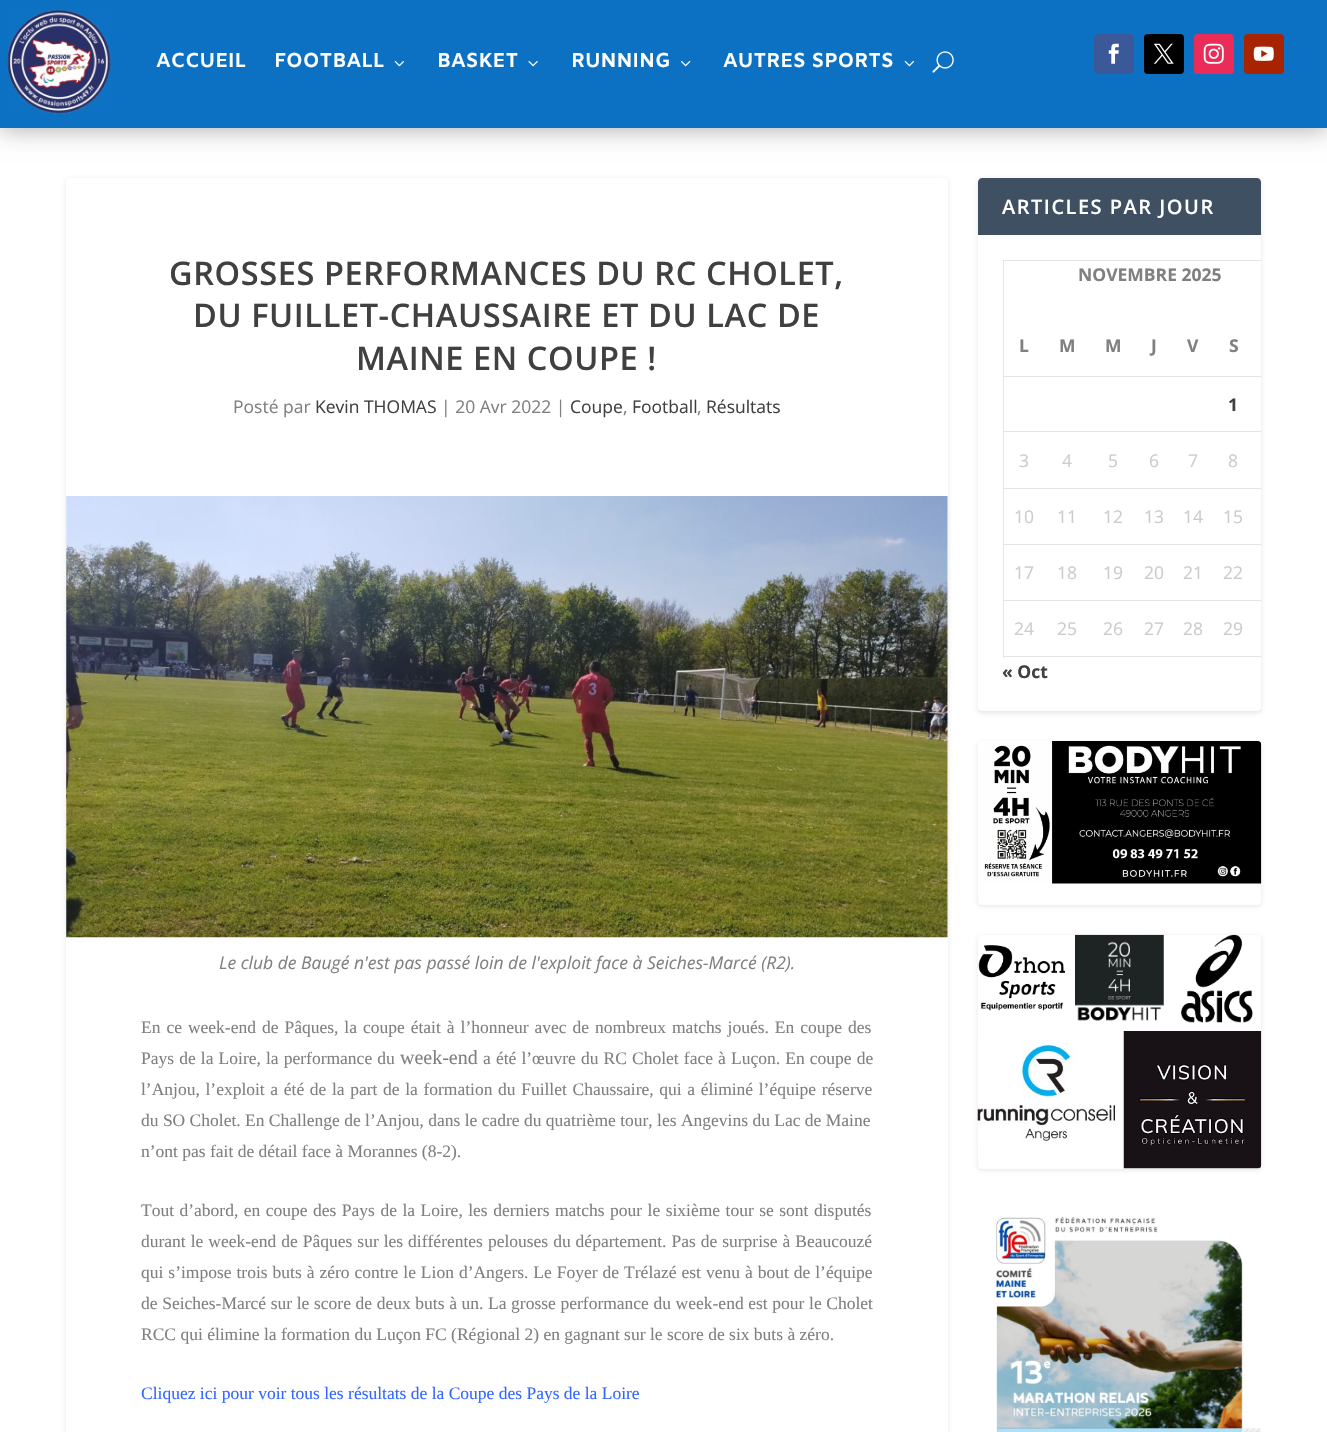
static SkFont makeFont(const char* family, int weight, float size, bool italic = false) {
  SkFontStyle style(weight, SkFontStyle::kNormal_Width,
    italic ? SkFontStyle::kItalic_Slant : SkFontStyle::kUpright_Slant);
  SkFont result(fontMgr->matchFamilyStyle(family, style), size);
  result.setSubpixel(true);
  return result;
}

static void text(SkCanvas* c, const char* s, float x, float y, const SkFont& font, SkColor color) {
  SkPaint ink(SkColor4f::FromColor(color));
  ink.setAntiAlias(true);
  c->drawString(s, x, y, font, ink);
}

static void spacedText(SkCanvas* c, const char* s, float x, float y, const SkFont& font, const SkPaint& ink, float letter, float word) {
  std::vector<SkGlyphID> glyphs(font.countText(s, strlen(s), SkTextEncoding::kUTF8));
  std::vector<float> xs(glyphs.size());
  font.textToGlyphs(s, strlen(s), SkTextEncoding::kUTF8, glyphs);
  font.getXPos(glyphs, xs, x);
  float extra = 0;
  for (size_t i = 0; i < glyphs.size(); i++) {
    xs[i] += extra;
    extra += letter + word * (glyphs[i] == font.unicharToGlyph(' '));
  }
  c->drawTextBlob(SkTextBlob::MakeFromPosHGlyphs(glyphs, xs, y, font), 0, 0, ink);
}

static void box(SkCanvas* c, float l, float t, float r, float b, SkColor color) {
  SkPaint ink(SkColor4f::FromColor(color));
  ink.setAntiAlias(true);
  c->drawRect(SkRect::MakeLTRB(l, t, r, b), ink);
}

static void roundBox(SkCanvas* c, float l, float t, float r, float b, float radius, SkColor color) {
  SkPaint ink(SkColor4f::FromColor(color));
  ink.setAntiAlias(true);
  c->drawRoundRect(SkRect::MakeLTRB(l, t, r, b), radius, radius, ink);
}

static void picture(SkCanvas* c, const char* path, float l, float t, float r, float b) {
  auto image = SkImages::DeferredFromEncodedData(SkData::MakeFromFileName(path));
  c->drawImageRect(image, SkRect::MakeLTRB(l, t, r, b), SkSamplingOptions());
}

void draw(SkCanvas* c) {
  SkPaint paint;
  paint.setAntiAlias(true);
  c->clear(0xffffffff);
  paint.setColor(0x4d000000);
  paint.setMaskFilter(SkMaskFilter::MakeBlur(kNormal_SkBlurStyle, 11));
  c->drawRect(SkRect::MakeLTRB(0, -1, 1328, 130), paint);
  paint.setMaskFilter(nullptr);
  box(c, 0, 0, 1327, 128, 0xff0c71c3);
  picture(c, "img_01.png", 7, 9, 111, 114);
  SkFont face1 = makeFont("Amiko", 700, 20);
  text(c, "ACCUEIL", 156, 67, face1, 0xffffffff);
  text(c, "FOOTBALL", 274, 67, face1, 0xffffffff);
  picture(c, "img_02.png", 394, 61, 404, 67);
  text(c, "BASKET", 437, 67, face1, 0xffffffff);
  picture(c, "img_03.png", 528, 61, 538, 67);
  text(c, "RUNNING", 571, 67, face1, 0xffffffff);
  picture(c, "img_04.png", 681, 61, 691, 67);
  text(c, "AUTRES SPORTS", 723, 67, face1, 0xffffffff);
  picture(c, "img_02.png", 904, 61, 914, 67);
  picture(c, "img_05.png", 932, 51, 954, 73);
  roundBox(c, 1094, 34, 1134, 74, 4, 0xff3b5998);
  picture(c, "img_06.png", 1108, 43, 1119, 64);
  roundBox(c, 1144, 34, 1184, 74, 4, 0xff000000);
  picture(c, "img_07.png", 1153, 43, 1174, 64);
  roundBox(c, 1194, 34, 1234, 74, 4, 0xffea2c59);
  picture(c, "img_08.png", 1203, 43, 1224, 64);
  roundBox(c, 1244, 34, 1284, 74, 4, 0xffa82400);
  picture(c, "img_09.png", 1253, 46, 1274, 61);
  paint.setColor(0x1a000000);
  paint.setMaskFilter(SkMaskFilter::MakeBlur(kNormal_SkBlurStyle, 2));
  c->drawRoundRect(SkRect::MakeLTRB(66, 179, 948, 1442), 4, 4, paint);
  paint.setMaskFilter(nullptr);
  roundBox(c, 66, 178, 948, 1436, 4, 0xffffffff);
  SkFont face2 = makeFont("Open Sans", 600, 32.5f);
  paint.setColor(0xff404040);
  spacedText(c, "GROSSES PERFORMANCES DU RC CHOLET,", 169, 285, face2, paint, 0.6f, 0);
  spacedText(c, "DU FUILLET-CHAUSSAIRE ET DU LAC DE", 193, 327, face2, paint, 0.6f, 0);
  spacedText(c, "MAINE EN COUPE !", 356, 370, face2, paint, 0.6f, 0);
  SkFont face3 = makeFont("Open Sans", 400, 17.5f);
  text(c, "Posté par", 233, 413, face3, 0xff808080);
  text(c, "Kevin THOMAS", 315, 413, face3, 0xff404040);
  text(c, "| 20 Avr 2022 |", 441, 413, face3, 0xff808080);
  text(c, "Coupe", 570, 413, face3, 0xff404040);
  text(c, ",", 623, 413, face3, 0xff808080);
  text(c, "Football", 632, 413, face3, 0xff404040);
  text(c, ",", 697, 413, face3, 0xff808080);
  text(c, "Résultats", 706, 413, face3, 0xff404040);
  picture(c, "img_10.png", 66, 496, 948, 938);
  SkFont face4 = makeFont("Open Sans", 400, 17.5f, true);
  text(c, "Le club de Baugé n'est pas passé loin de l'exploit face à Seiches-Marcé (R2).", 219, 969, face4, 0xff808080);
  SkFont face5 = makeFont("Liberation Serif", 400, 17.5f);
  paint.setColor(0xff808080);
  spacedText(c, "En ce week-end de Pâques, la coupe était à l’honneur avec de nombreux matchs joués. En coupe des", 141, 1033, face5, paint, 0, 1.6f);
  spacedText(c, "Pays de la Loire, la performance du", 141, 1064, face5, paint, 0, 0.75f);
  SkFont face6 = makeFont("Liberation Serif", 400, 20);
  text(c, "week-end", 400, 1064, face6, 0xff808080);
  spacedText(c, "a été l’œuvre du RC Cholet face à Luçon. En coupe de", 483, 1064, face5, paint, 0, 0.75f);
  spacedText(c, "l’Anjou, l’exploit a été de la part de la formation du Fuillet Chaussaire, qui a éliminé l’équipe réserve", 141, 1095, face5, paint, 0, 1.25f);
  text(c, "du SO Cholet. En Challenge de l’Anjou, dans le cadre du quatrième tour, les Angevins du Lac de Maine", 141, 1126, face5, 0xff808080);
  text(c, "n’ont pas fait de détail face à Morannes (8-2).", 141, 1157, face5, 0xff808080);
  spacedText(c, "Tout d’abord, en coupe des Pays de la Loire, les derniers matchs pour le sixième tour se sont disputés", 141, 1216, face5, paint, 0, 1.1f);
  spacedText(c, "durant le week-end de Pâques sur les différentes pelouses du département. Pas de surprise à Beaucouzé", 141, 1247, face5, paint, 0, 0.6f);
  spacedText(c, "qui s’impose trois buts à zéro contre le Lion d’Angers. Le Foyer de Trélazé est venu à bout de l’équipe", 141, 1278, face5, paint, 0, 0.6f);
  spacedText(c, "de Seiches-Marcé sur le score de deux buts à un. La grosse performance du week-end est pour le Cholet", 141, 1309, face5, paint, 0, 0.25f);
  text(c, "RCC qui élimine la formation du Luçon FC (Régional 2) en gagnant sur le score de six buts à zéro.", 141, 1340, face5, 0xff808080);
  text(c, "Cliquez ici pour voir tous les résultats de la Coupe des Pays de la Loire", 141, 1399, face5, 0xff3366ff);
  c->save();
  c->clipPath(SkPathBuilder(SkPathFillType::kEvenOdd).moveTo(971, 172).lineTo(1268, 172).lineTo(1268, 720).lineTo(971, 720).close().moveTo(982, 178).lineTo(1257, 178).cubicTo(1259, 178, 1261, 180, 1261, 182).lineTo(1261, 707).cubicTo(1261, 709, 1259, 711, 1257, 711).lineTo(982, 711).cubicTo(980, 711, 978, 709, 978, 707).lineTo(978, 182).cubicTo(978, 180, 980, 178, 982, 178).close().detach(), true);
  paint.setColor(0x1a000000);
  paint.setMaskFilter(SkMaskFilter::MakeBlur(kNormal_SkBlurStyle, 2));
  c->drawRoundRect(SkRect::MakeLTRB(978, 179, 1261, 713), 4, 4, paint);
  paint.setMaskFilter(nullptr);
  c->restore();
  paint.setColor(0xff3e5062);
  c->drawPath(SkPathBuilder().moveTo(982, 178).lineTo(1257, 178).cubicTo(1259, 178, 1261, 180, 1261, 182).lineTo(1261, 235).lineTo(978, 235).lineTo(978, 182).cubicTo(978, 180, 980, 178, 982, 178).close().detach(), paint);
  SkFont face7 = makeFont("Open Sans", 600, 20);
  paint.setColor(0xffffffff);
  spacedText(c, "ARTICLES PAR JOUR", 1002, 214, face7, paint, 1.5f, 0);
  box(c, 1003, 260, 1261, 261, 0xffe5e5e5);
  box(c, 1003, 656, 1261, 657, 0xffe5e5e5);
  box(c, 1003, 260, 1004, 658, 0xffe5e5e5);
  SkFont face8 = makeFont("Open Sans", 700, 17.5f);
  text(c, "NOVEMBRE 2025", 1078, 281, face8, 0xff808080);
  text(c, "L", 1019, 352, face8, 0xff808080);
  text(c, "M", 1059, 352, face8, 0xff808080);
  text(c, "M", 1105, 352, face8, 0xff808080);
  text(c, "J", 1151, 352, face8, 0xff808080);
  text(c, "V", 1187, 352, face8, 0xff808080);
  text(c, "S", 1229, 352, face8, 0xff808080);
  box(c, 1003, 376, 1261, 377, 0xffe5e5e5);
  text(c, "1", 1228, 411, face8, 0xff404040);
  box(c, 1003, 431, 1261, 432, 0xffe5e5e5);
  text(c, "3", 1019, 467, face3, 0xffcccccc);
  text(c, "4", 1062, 467, face3, 0xffcccccc);
  text(c, "5", 1108, 467, face3, 0xffcccccc);
  text(c, "6", 1149, 467, face3, 0xffcccccc);
  text(c, "7", 1188, 467, face3, 0xffcccccc);
  text(c, "8", 1228, 467, face3, 0xffcccccc);
  box(c, 1003, 488, 1261, 489, 0xffe5e5e5);
  text(c, "10", 1014, 523, face3, 0xffcccccc);
  text(c, "11", 1057, 523, face3, 0xffcccccc);
  text(c, "12", 1103, 523, face3, 0xffcccccc);
  text(c, "13", 1144, 523, face3, 0xffcccccc);
  text(c, "14", 1183, 523, face3, 0xffcccccc);
  text(c, "15", 1223, 523, face3, 0xffcccccc);
  box(c, 1003, 544, 1261, 545, 0xffe5e5e5);
  text(c, "17", 1014, 579, face3, 0xffcccccc);
  text(c, "18", 1057, 579, face3, 0xffcccccc);
  text(c, "19", 1103, 579, face3, 0xffcccccc);
  text(c, "20", 1144, 579, face3, 0xffcccccc);
  text(c, "21", 1183, 579, face3, 0xffcccccc);
  text(c, "22", 1223, 579, face3, 0xffcccccc);
  box(c, 1003, 600, 1261, 601, 0xffe5e5e5);
  text(c, "24", 1014, 635, face3, 0xffcccccc);
  text(c, "25", 1057, 635, face3, 0xffcccccc);
  text(c, "26", 1103, 635, face3, 0xffcccccc);
  text(c, "27", 1144, 635, face3, 0xffcccccc);
  text(c, "28", 1183, 635, face3, 0xffcccccc);
  text(c, "29", 1223, 635, face3, 0xffcccccc);
  text(c, "« Oct", 1002, 678, face8, 0xff404040);
  paint.setColor(0x1a000000);
  paint.setMaskFilter(SkMaskFilter::MakeBlur(kNormal_SkBlurStyle, 2));
  c->drawRoundRect(SkRect::MakeLTRB(978, 743, 1261, 906), 4, 4, paint);
  paint.setMaskFilter(nullptr);
  roundBox(c, 978, 741, 1261, 905, 4, 0xffffffff);
  picture(c, "img_11.png", 984, 741, 1262, 884);
  paint.setMaskFilter(SkMaskFilter::MakeBlur(kNormal_SkBlurStyle, 2));
  c->drawRoundRect(SkRect::MakeLTRB(978, 936, 1261, 1170), 4, 4, paint);
  paint.setMaskFilter(nullptr);
  roundBox(c, 978, 935, 1261, 1169, 4, 0xffffffff);
  picture(c, "img_12.png", 978, 945, 1066, 1011);
  picture(c, "img_13.png", 1075, 934, 1164, 1021);
  picture(c, "img_14.png", 1181, 934, 1253, 1023);
  picture(c, "img_15.png", 977, 1042, 1115, 1141);
  picture(c, "img_16.png", 1123, 1031, 1262, 1169);
  picture(c, "img_17.png", 996, 1216, 1261, 1432);
}
